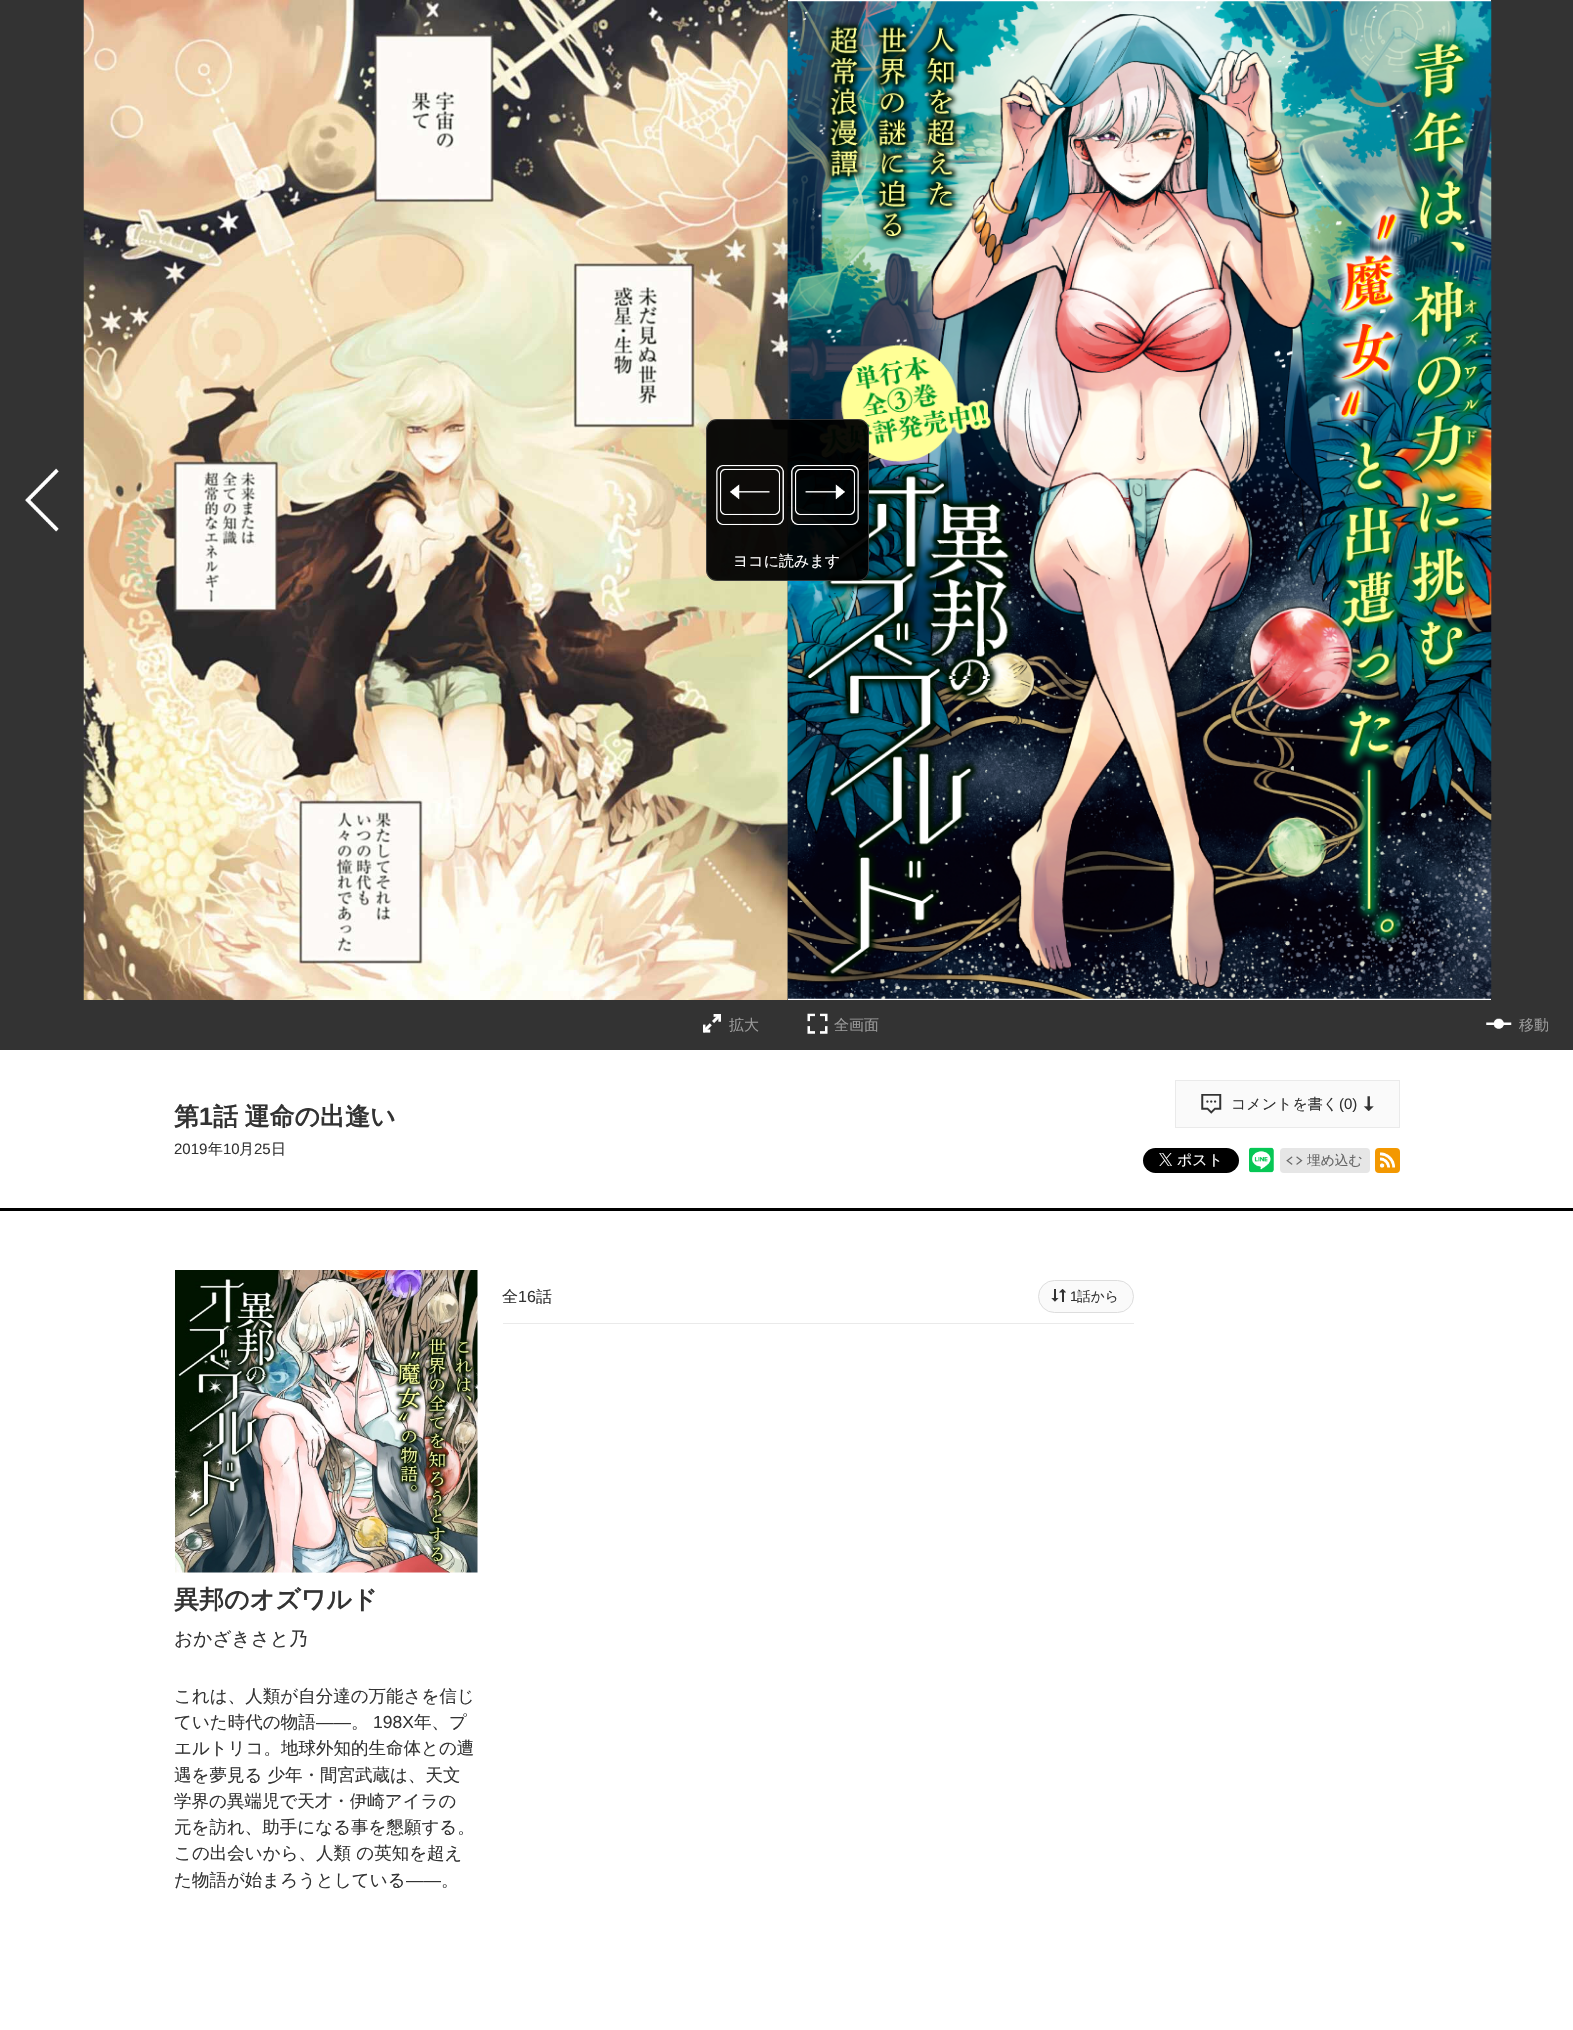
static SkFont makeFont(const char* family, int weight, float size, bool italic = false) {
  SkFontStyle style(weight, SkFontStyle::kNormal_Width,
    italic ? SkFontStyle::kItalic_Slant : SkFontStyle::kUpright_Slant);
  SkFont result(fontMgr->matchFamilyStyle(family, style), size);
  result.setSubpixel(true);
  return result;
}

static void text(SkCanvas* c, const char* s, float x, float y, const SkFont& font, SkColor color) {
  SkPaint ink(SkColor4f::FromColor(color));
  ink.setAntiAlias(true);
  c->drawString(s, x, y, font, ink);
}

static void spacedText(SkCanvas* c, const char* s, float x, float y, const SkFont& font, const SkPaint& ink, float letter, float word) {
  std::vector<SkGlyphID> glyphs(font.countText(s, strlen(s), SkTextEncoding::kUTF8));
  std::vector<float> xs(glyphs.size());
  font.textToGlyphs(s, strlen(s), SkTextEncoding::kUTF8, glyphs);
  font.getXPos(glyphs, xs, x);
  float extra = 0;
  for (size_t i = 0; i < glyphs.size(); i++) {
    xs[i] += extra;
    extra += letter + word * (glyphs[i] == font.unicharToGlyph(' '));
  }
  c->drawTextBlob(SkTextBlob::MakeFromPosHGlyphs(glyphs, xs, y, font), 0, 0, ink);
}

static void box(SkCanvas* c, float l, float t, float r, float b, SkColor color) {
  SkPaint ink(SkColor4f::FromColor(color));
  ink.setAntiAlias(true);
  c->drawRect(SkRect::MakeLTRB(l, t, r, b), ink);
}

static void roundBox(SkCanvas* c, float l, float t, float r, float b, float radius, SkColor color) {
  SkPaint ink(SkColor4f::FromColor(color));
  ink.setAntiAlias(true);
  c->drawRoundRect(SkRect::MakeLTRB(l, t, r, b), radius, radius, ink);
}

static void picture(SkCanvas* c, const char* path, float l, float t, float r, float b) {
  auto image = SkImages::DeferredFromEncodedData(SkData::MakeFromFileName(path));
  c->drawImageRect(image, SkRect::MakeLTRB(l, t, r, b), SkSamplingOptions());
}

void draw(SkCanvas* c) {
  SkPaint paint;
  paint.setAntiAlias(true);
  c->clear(0xffffffff);
  box(c, 0, 0, 1573, 1050, 0xff333333);
  picture(c, "img_01.png", 25, 468, 59, 532);
  box(c, 788, 0, 1491, 1000, 0xffffffff);
  picture(c, "img_03.png", 787, 1, 1492, 999);
  picture(c, "img_02.png", 83, 0, 788, 1000);
  roundBox(c, 706, 419, 869, 581, 11, 0xf2000000);
  picture(c, "img_04.png", 716, 465, 859, 525);
  paint.setStyle(SkPaint::kStroke_Style);
  paint.setStrokeWidth(1);
  paint.setColor(0x33ffffff);
  c->drawRoundRect(SkRect::MakeLTRB(706.5f, 419.5f, 868.5f, 580.5f), 10.5f, 10.5f, paint);
  SkFont face1 = makeFont("WenQuanYi Zen Hei", 500, 15);
  text(c, "ヨコに読みます", 733, 566, face1, 0xffffffff);
  picture(c, "img_05.png", 703, 1014, 721, 1033);
  text(c, "拡大", 729, 1030, face1, 0xff999999);
  picture(c, "img_06.png", 807, 1013, 828, 1034);
  text(c, "全画面", 834, 1030, face1, 0xff999999);
  picture(c, "img_07.png", 1486, 1018, 1512, 1029);
  text(c, "移動", 1519, 1030, face1, 0xff999999);
  box(c, 0, 1208, 1573, 1211, 0xff000000);
  SkFont face2 = makeFont("WenQuanYi Zen Hei", 700, 25);
  text(c, "第", 174, 1125, face2, 0xff333333);
  SkFont face3 = makeFont("Liberation Sans", 700, 25);
  text(c, "1", 199, 1125, face3, 0xff333333);
  paint.setStyle(SkPaint::kFill_Style);
  paint.setColor(0xff333333);
  spacedText(c, "話 運命の出逢い", 213, 1125, face2, paint, 0, -1);
  SkFont face4 = makeFont("Liberation Sans", 400, 15);
  text(c, "2019", 174, 1154, face4, 0xff333333);
  text(c, "年", 208, 1154, face1, 0xff333333);
  text(c, "10", 223, 1154, face4, 0xff333333);
  text(c, "月", 239, 1154, face1, 0xff333333);
  text(c, "25", 254, 1154, face4, 0xff333333);
  text(c, "日", 271, 1154, face1, 0xff333333);
  paint.setColor(0xfffafafa);
  c->drawRect(SkRect::MakeLTRB(1175.5f, 1080.5f, 1399.5f, 1127.5f), paint);
  paint.setStyle(SkPaint::kStroke_Style);
  paint.setColor(0xffeaeaea);
  c->drawRect(SkRect::MakeLTRB(1175.5f, 1080.5f, 1399.5f, 1127.5f), paint);
  picture(c, "img_08.png", 1201, 1094, 1222, 1114);
  text(c, "コメントを書く", 1231, 1109, face1, 0xff333333);
  text(c, "(0)", 1339, 1109, face4, 0xff333333);
  picture(c, "img_09.png", 1363, 1096, 1374, 1111);
  roundBox(c, 1143, 1148, 1239, 1173, 12.5f, 0xff000000);
  picture(c, "img_10.png", 1159, 1153, 1172, 1166);
  text(c, "ポスト", 1177, 1165, face1, 0xffffffff);
  picture(c, "img_11.png", 1249, 1147, 1274, 1173);
  roundBox(c, 1280, 1148, 1370, 1173, 4, 0xffe6e6e6);
  picture(c, "img_12.png", 1286, 1156, 1303, 1165);
  SkFont face5 = makeFont("WenQuanYi Zen Hei", 500, 13.75f);
  text(c, "埋め込む", 1307, 1165, face5, 0xff666666);
  roundBox(c, 1375, 1148, 1400, 1173, 4, 0xfff39801);
  picture(c, "img_13.png", 1380, 1152, 1395, 1168);
  box(c, 503, 1323, 1134, 1324, 0xffeaeaea);
  SkFont face6 = makeFont("WenQuanYi Zen Hei", 500, 16);
  text(c, "全", 502, 1302, face6, 0xff333333);
  SkFont face7 = makeFont("Liberation Sans", 400, 16);
  text(c, "16", 518, 1302, face7, 0xff333333);
  text(c, "話", 536, 1302, face6, 0xff333333);
  paint.setStyle(SkPaint::kFill_Style);
  paint.setColor(0xfffafafa);
  c->drawRoundRect(SkRect::MakeLTRB(1038.5f, 1280.5f, 1133.5f, 1312.5f), 16, 16, paint);
  paint.setStyle(SkPaint::kStroke_Style);
  paint.setColor(0xffdddddd);
  c->drawRoundRect(SkRect::MakeLTRB(1038.5f, 1280.5f, 1133.5f, 1312.5f), 16, 16, paint);
  picture(c, "img_14.png", 1051, 1289, 1066, 1302);
  SkFont face8 = makeFont("Liberation Sans", 400, 13.75f);
  text(c, "1", 1070, 1301, face8, 0xff333333);
  text(c, "話から", 1077, 1301, face5, 0xff333333);
  picture(c, "img_15.png", 175, 1270, 478, 1573);
  text(c, "異邦のオズワルド", 174, 1608, face2, 0xff333333);
  SkFont face9 = makeFont("WenQuanYi Zen Hei", 500, 18.75f);
  text(c, "おかざきさと乃", 174, 1645, face9, 0xff333333);
  SkFont face10 = makeFont("WenQuanYi Zen Hei", 500, 17.5f);
  text(c, "これは、人類が自分達の万能さを信じ", 174, 1702, face10, 0xff333333);
  text(c, "ていた時代の物語", 174, 1728, face10, 0xff333333);
  SkFont face11 = makeFont("Liberation Sans", 400, 17.5f);
  text(c, "――", 316, 1728, face11, 0xff333333);
  text(c, "198X", 373, 1728, face11, 0xff333333);
  text(c, "年、プ", 414, 1728, face10, 0xff333333);
  text(c, "。", 351, 1728, face10, 0xff333333);
  text(c, "エルトリコ。地球外知的生命体との遭", 174, 1754, face10, 0xff333333);
  text(c, "遇を夢見る 少年・間宮武蔵は、天文", 174, 1781, face10, 0xff333333);
  text(c, "学界の異端児で天才・伊崎アイラの", 174, 1807, face10, 0xff333333);
  text(c, "元を訪れ、助手になる事を懇願する。", 174, 1833, face10, 0xff333333);
  text(c, "この出会いから、人類 の英知を超え", 174, 1859, face10, 0xff333333);
  text(c, "た物語が始まろうとしている", 174, 1886, face10, 0xff333333);
  text(c, "――", 406, 1886, face11, 0xff333333);
  text(c, "。", 441, 1886, face10, 0xff333333);
}
